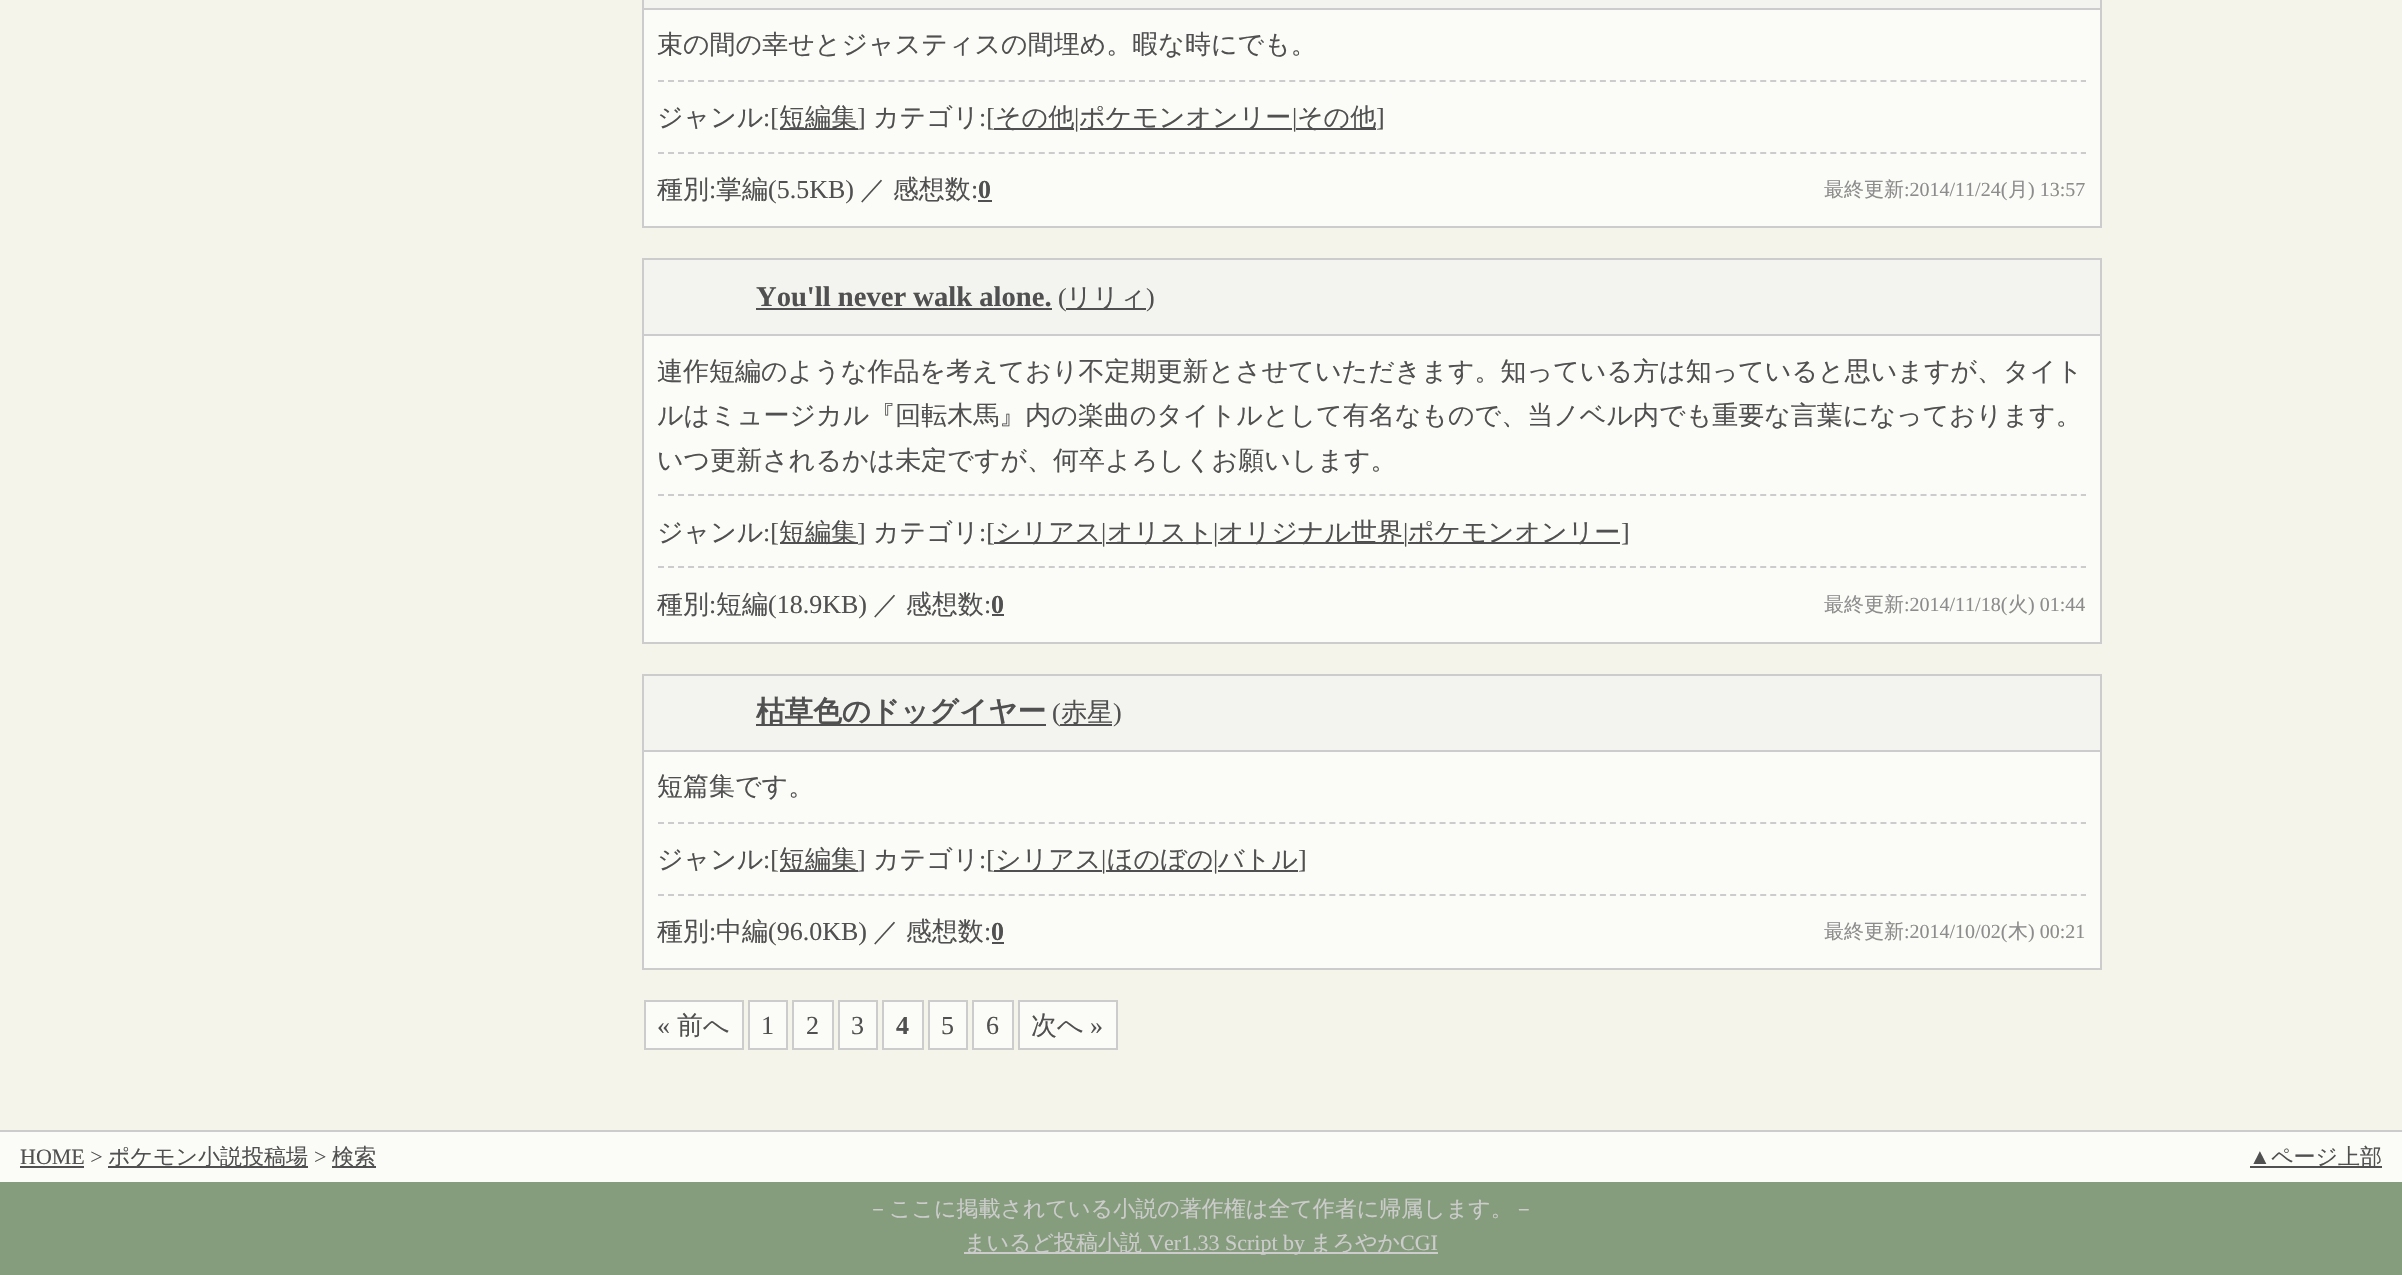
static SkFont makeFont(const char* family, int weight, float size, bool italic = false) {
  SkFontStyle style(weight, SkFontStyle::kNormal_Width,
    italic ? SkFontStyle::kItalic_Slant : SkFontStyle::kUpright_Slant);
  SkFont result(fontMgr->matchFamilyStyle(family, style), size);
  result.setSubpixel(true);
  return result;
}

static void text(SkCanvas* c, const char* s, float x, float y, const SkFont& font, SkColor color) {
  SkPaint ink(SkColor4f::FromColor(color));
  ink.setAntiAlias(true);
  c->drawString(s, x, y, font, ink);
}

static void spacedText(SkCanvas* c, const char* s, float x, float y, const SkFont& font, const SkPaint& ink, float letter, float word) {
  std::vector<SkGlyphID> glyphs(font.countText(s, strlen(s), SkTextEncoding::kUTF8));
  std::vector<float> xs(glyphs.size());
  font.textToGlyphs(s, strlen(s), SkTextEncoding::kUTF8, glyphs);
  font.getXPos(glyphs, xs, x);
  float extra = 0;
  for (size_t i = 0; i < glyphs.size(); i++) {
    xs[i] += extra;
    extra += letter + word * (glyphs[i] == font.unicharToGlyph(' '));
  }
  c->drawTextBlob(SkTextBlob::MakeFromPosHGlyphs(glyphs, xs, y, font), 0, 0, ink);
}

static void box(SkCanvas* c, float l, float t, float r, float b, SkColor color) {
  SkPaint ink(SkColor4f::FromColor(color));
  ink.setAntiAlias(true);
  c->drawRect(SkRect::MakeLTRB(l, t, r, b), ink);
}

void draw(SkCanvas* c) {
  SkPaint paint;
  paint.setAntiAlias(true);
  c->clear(0xfff5f4ea);
  box(c, 644, 10, 2100, 226, 0xfffbfbf7);
  box(c, 2100, 0, 2102, 228, 0xffcccccc);
  box(c, 642, 226, 2102, 228, 0xffcccccc);
  box(c, 642, 0, 2100, 8, 0xfff3f3ef);
  box(c, 642, 0, 644, 228, 0xffcccccc);
  box(c, 642, 8, 2102, 10, 0xffcccccc);
  SkFont face1 = makeFont("WenQuanYi Zen Hei", 500, 26);
  text(c, "束の間の幸せとジャスティスの間埋め。暇な時にでも。", 657, 53, face1, 0xff505050);
  paint.setStyle(SkPaint::kStroke_Style);
  paint.setStrokeWidth(2);
  paint.setColor(0xffcccccc);
  paint.setPathEffect(SkDashPathEffect::Make({{6, 4.02f}}, 0));
  c->drawPath(SkPathBuilder().moveTo(658, 81).lineTo(2086, 81).detach(), paint);
  paint.setPathEffect(nullptr);
  text(c, "ジャンル", 657, 126, face1, 0xff505050);
  SkFont face2 = makeFont("Liberation Serif", 400, 26);
  text(c, ":[", 763, 126, face2, 0xff505050);
  box(c, 780, 128, 858, 130, 0xff505050);
  text(c, "短編集", 779, 126, face1, 0xff505050);
  text(c, "]", 857, 126, face2, 0xff505050);
  text(c, "カテゴリ", 873, 126, face1, 0xff505050);
  text(c, ":[", 979, 126, face2, 0xff505050);
  box(c, 994, 128, 1074, 130, 0xff505050);
  text(c, "その他", 995, 126, face1, 0xff505050);
  text(c, "|", 1074, 126, face2, 0xff505050);
  box(c, 1080, 128, 1292, 130, 0xff505050);
  text(c, "ポケモンオンリー", 1079, 126, face1, 0xff505050);
  text(c, "|", 1292, 126, face2, 0xff505050);
  box(c, 1296, 128, 1376, 130, 0xff505050);
  text(c, "その他", 1297, 126, face1, 0xff505050);
  text(c, "]", 1376, 126, face2, 0xff505050);
  paint.setPathEffect(SkDashPathEffect::Make({{6, 4.02f}}, 0));
  c->drawPath(SkPathBuilder().moveTo(658, 153).lineTo(2086, 153).detach(), paint);
  paint.setPathEffect(nullptr);
  text(c, "種別", 657, 198, face1, 0xff505050);
  text(c, ":", 709, 198, face2, 0xff505050);
  text(c, "掌編", 716, 198, face1, 0xff505050);
  text(c, "(5.5KB)", 768, 198, face2, 0xff505050);
  paint.setStyle(SkPaint::kFill_Style);
  paint.setColor(0xff505050);
  spacedText(c, "／ 感想数", 860, 198, face1, paint, 0, -1);
  text(c, ":", 971, 198, face2, 0xff505050);
  SkFont face3 = makeFont("Liberation Serif", 700, 26);
  text(c, "0", 978, 198, face3, 0xff505050);
  box(c, 978, 200, 992, 202, 0xff505050);
  SkFont face4 = makeFont("WenQuanYi Zen Hei", 500, 20);
  text(c, "最終更新", 1824, 196, face4, 0xff8c8c8c);
  SkFont face5 = makeFont("Liberation Serif", 400, 20);
  text(c, ":2014/11/24(", 1904, 196, face5, 0xff8c8c8c);
  text(c, "月", 2008, 196, face4, 0xff8c8c8c);
  text(c, ") 13:57", 2028, 196, face5, 0xff8c8c8c);
  box(c, 644, 336, 2100, 642, 0xfffbfbf7);
  box(c, 642, 258, 2102, 260, 0xffcccccc);
  box(c, 2100, 258, 2102, 644, 0xffcccccc);
  box(c, 642, 642, 2102, 644, 0xffcccccc);
  box(c, 642, 258, 644, 644, 0xffcccccc);
  box(c, 644, 260, 2100, 334, 0xfff3f3ef);
  box(c, 642, 334, 2102, 336, 0xffcccccc);
  SkFont face6 = makeFont("Liberation Serif", 700, 28.6f);
  text(c, "You'll never walk alone.", 756, 306, face6, 0xff505050);
  box(c, 756, 308, 1052, 310, 0xff505050);
  text(c, "(", 1058, 306, face2, 0xff505050);
  box(c, 1066, 308, 1146, 310, 0xff505050);
  text(c, "リリィ", 1066, 306, face1, 0xff505050);
  text(c, ")", 1146, 306, face2, 0xff505050);
  text(c, "連作短編のような作品を考えており不定期更新とさせていただきます。知っている方は知っていると思いますが、タイト", 657, 380, face1, 0xff505050);
  text(c, "ルはミュージカル『回転木馬』内の楽曲のタイトルとして有名なもので、当ノベル内でも重要な言葉になっております。", 657, 424, face1, 0xff505050);
  text(c, "いつ更新されるかは未定ですが、何卒よろしくお願いします。", 657, 469, face1, 0xff505050);
  paint.setStyle(SkPaint::kStroke_Style);
  paint.setColor(0xffcccccc);
  paint.setPathEffect(SkDashPathEffect::Make({{6, 4.02f}}, 0));
  c->drawPath(SkPathBuilder().moveTo(658, 495).lineTo(2086, 495).detach(), paint);
  paint.setPathEffect(nullptr);
  text(c, "ジャンル", 657, 541, face1, 0xff505050);
  text(c, ":[", 763, 541, face2, 0xff505050);
  box(c, 780, 542, 858, 544, 0xff505050);
  text(c, "短編集", 779, 541, face1, 0xff505050);
  text(c, "]", 857, 541, face2, 0xff505050);
  text(c, "カテゴリ", 873, 541, face1, 0xff505050);
  text(c, ":[", 979, 541, face2, 0xff505050);
  box(c, 994, 542, 1102, 544, 0xff505050);
  text(c, "シリアス", 995, 541, face1, 0xff505050);
  text(c, "|", 1101, 541, face2, 0xff505050);
  box(c, 1106, 542, 1212, 544, 0xff505050);
  text(c, "オリスト", 1107, 541, face1, 0xff505050);
  text(c, "|", 1213, 541, face2, 0xff505050);
  box(c, 1218, 542, 1404, 544, 0xff505050);
  text(c, "オリジナル世界", 1218, 541, face1, 0xff505050);
  text(c, "|", 1403, 541, face2, 0xff505050);
  box(c, 1408, 542, 1620, 544, 0xff505050);
  text(c, "ポケモンオンリー", 1408, 541, face1, 0xff505050);
  text(c, "]", 1621, 541, face2, 0xff505050);
  paint.setPathEffect(SkDashPathEffect::Make({{6, 4.02f}}, 0));
  c->drawPath(SkPathBuilder().moveTo(658, 567).lineTo(2086, 567).detach(), paint);
  paint.setPathEffect(nullptr);
  text(c, "種別", 657, 613, face1, 0xff505050);
  text(c, ":", 709, 613, face2, 0xff505050);
  text(c, "短編", 716, 613, face1, 0xff505050);
  text(c, "(18.9KB)", 768, 613, face2, 0xff505050);
  paint.setStyle(SkPaint::kFill_Style);
  paint.setColor(0xff505050);
  spacedText(c, "／ 感想数", 873, 613, face1, paint, 0, -1);
  text(c, ":", 984, 613, face2, 0xff505050);
  text(c, "0", 991, 613, face3, 0xff505050);
  box(c, 992, 614, 1004, 616, 0xff505050);
  text(c, "最終更新", 1824, 611, face4, 0xff8c8c8c);
  text(c, ":2014/11/18(", 1904, 611, face5, 0xff8c8c8c);
  text(c, "火", 2008, 611, face4, 0xff8c8c8c);
  text(c, ") 01:44", 2028, 611, face5, 0xff8c8c8c);
  box(c, 644, 752, 2100, 968, 0xfffbfbf7);
  box(c, 642, 674, 2102, 676, 0xffcccccc);
  box(c, 2100, 674, 2102, 970, 0xffcccccc);
  box(c, 642, 968, 2102, 970, 0xffcccccc);
  box(c, 642, 674, 644, 970, 0xffcccccc);
  box(c, 644, 676, 2100, 750, 0xfff3f3ef);
  box(c, 642, 750, 2102, 752, 0xffcccccc);
  box(c, 756, 724, 1046, 726, 0xff505050);
  SkFont face7 = makeFont("WenQuanYi Zen Hei", 700, 28.6f);
  text(c, "枯草色のドッグイヤー", 756, 721, face7, 0xff505050);
  text(c, "(", 1052, 721, face2, 0xff505050);
  box(c, 1060, 724, 1112, 726, 0xff505050);
  text(c, "赤星", 1061, 721, face1, 0xff505050);
  text(c, ")", 1113, 721, face2, 0xff505050);
  text(c, "短篇集です。", 657, 795, face1, 0xff505050);
  paint.setStyle(SkPaint::kStroke_Style);
  paint.setColor(0xffcccccc);
  paint.setPathEffect(SkDashPathEffect::Make({{6, 4.02f}}, 0));
  c->drawPath(SkPathBuilder().moveTo(658, 823).lineTo(2086, 823).detach(), paint);
  paint.setPathEffect(nullptr);
  text(c, "ジャンル", 657, 868, face1, 0xff505050);
  text(c, ":[", 763, 868, face2, 0xff505050);
  box(c, 780, 870, 858, 872, 0xff505050);
  text(c, "短編集", 779, 868, face1, 0xff505050);
  text(c, "]", 857, 868, face2, 0xff505050);
  text(c, "カテゴリ", 873, 868, face1, 0xff505050);
  text(c, ":[", 979, 868, face2, 0xff505050);
  box(c, 994, 870, 1102, 872, 0xff505050);
  text(c, "シリアス", 995, 868, face1, 0xff505050);
  text(c, "|", 1101, 868, face2, 0xff505050);
  box(c, 1106, 870, 1212, 872, 0xff505050);
  text(c, "ほのぼの", 1107, 868, face1, 0xff505050);
  text(c, "|", 1213, 868, face2, 0xff505050);
  box(c, 1218, 870, 1298, 872, 0xff505050);
  text(c, "バトル", 1218, 868, face1, 0xff505050);
  text(c, "]", 1298, 868, face2, 0xff505050);
  paint.setPathEffect(SkDashPathEffect::Make({{6, 4.02f}}, 0));
  c->drawPath(SkPathBuilder().moveTo(658, 895).lineTo(2086, 895).detach(), paint);
  paint.setPathEffect(nullptr);
  text(c, "種別", 657, 940, face1, 0xff505050);
  text(c, ":", 709, 940, face2, 0xff505050);
  text(c, "中編", 716, 940, face1, 0xff505050);
  text(c, "(96.0KB)", 768, 940, face2, 0xff505050);
  paint.setStyle(SkPaint::kFill_Style);
  paint.setColor(0xff505050);
  spacedText(c, "／ 感想数", 873, 940, face1, paint, 0, -1);
  text(c, ":", 984, 940, face2, 0xff505050);
  text(c, "0", 991, 940, face3, 0xff505050);
  box(c, 992, 942, 1004, 944, 0xff505050);
  text(c, "最終更新", 1824, 938, face4, 0xff8c8c8c);
  text(c, ":2014/10/02(", 1904, 938, face5, 0xff8c8c8c);
  text(c, "木", 2008, 938, face4, 0xff8c8c8c);
  text(c, ") 00:21", 2028, 938, face5, 0xff8c8c8c);
  paint.setColor(0xfffbfbf7);
  c->drawRect(SkRect::MakeLTRB(645, 1001, 743, 1049), paint);
  paint.setStyle(SkPaint::kStroke_Style);
  paint.setColor(0xffcccccc);
  c->drawRect(SkRect::MakeLTRB(645, 1001, 743, 1049), paint);
  text(c, "«", 657, 1034, face2, 0xff505050);
  text(c, "前へ", 677, 1034, face1, 0xff505050);
  paint.setStyle(SkPaint::kFill_Style);
  paint.setColor(0xfffbfbf7);
  c->drawRect(SkRect::MakeLTRB(749, 1001, 787, 1049), paint);
  paint.setStyle(SkPaint::kStroke_Style);
  paint.setColor(0xffcccccc);
  c->drawRect(SkRect::MakeLTRB(749, 1001, 787, 1049), paint);
  text(c, "1", 761, 1034, face2, 0xff505050);
  paint.setStyle(SkPaint::kFill_Style);
  paint.setColor(0xfffbfbf7);
  c->drawRect(SkRect::MakeLTRB(793, 1001, 833, 1049), paint);
  paint.setStyle(SkPaint::kStroke_Style);
  paint.setColor(0xffcccccc);
  c->drawRect(SkRect::MakeLTRB(793, 1001, 833, 1049), paint);
  text(c, "2", 806, 1034, face2, 0xff505050);
  paint.setStyle(SkPaint::kFill_Style);
  paint.setColor(0xfffbfbf7);
  c->drawRect(SkRect::MakeLTRB(839, 1001, 877, 1049), paint);
  paint.setStyle(SkPaint::kStroke_Style);
  paint.setColor(0xffcccccc);
  c->drawRect(SkRect::MakeLTRB(839, 1001, 877, 1049), paint);
  text(c, "3", 851, 1034, face2, 0xff505050);
  paint.setStyle(SkPaint::kFill_Style);
  paint.setColor(0xfffbfbf7);
  c->drawRect(SkRect::MakeLTRB(883, 1001, 923, 1049), paint);
  paint.setStyle(SkPaint::kStroke_Style);
  paint.setColor(0xffcccccc);
  c->drawRect(SkRect::MakeLTRB(883, 1001, 923, 1049), paint);
  text(c, "4", 896, 1034, face3, 0xff505050);
  paint.setStyle(SkPaint::kFill_Style);
  paint.setColor(0xfffbfbf7);
  c->drawRect(SkRect::MakeLTRB(929, 1001, 967, 1049), paint);
  paint.setStyle(SkPaint::kStroke_Style);
  paint.setColor(0xffcccccc);
  c->drawRect(SkRect::MakeLTRB(929, 1001, 967, 1049), paint);
  text(c, "5", 941, 1034, face2, 0xff505050);
  paint.setStyle(SkPaint::kFill_Style);
  paint.setColor(0xfffbfbf7);
  c->drawRect(SkRect::MakeLTRB(973, 1001, 1013, 1049), paint);
  paint.setStyle(SkPaint::kStroke_Style);
  paint.setColor(0xffcccccc);
  c->drawRect(SkRect::MakeLTRB(973, 1001, 1013, 1049), paint);
  text(c, "6", 986, 1034, face2, 0xff505050);
  paint.setStyle(SkPaint::kFill_Style);
  paint.setColor(0xfffbfbf7);
  c->drawRect(SkRect::MakeLTRB(1019, 1001, 1117, 1049), paint);
  paint.setStyle(SkPaint::kStroke_Style);
  paint.setColor(0xffcccccc);
  c->drawRect(SkRect::MakeLTRB(1019, 1001, 1117, 1049), paint);
  text(c, "次へ", 1031, 1034, face1, 0xff505050);
  text(c, "»", 1090, 1034, face2, 0xff505050);
  box(c, 0, 1182, 2402, 1275, 0xff869d7d);
  box(c, 0, 1132, 2402, 1182, 0xfffbfbf7);
  box(c, 0, 1130, 2402, 1132, 0xffcccccc);
  SkFont face8 = makeFont("Liberation Serif", 400, 22);
  text(c, "HOME >", 20, 1164, face8, 0xff505050);
  box(c, 20, 1166, 84, 1168, 0xff505050);
  box(c, 108, 1166, 308, 1168, 0xff505050);
  SkFont face9 = makeFont("WenQuanYi Zen Hei", 500, 22);
  text(c, "ポケモン小説投稿場", 108, 1164, face9, 0xff505050);
  text(c, ">", 314, 1164, face8, 0xff505050);
  box(c, 332, 1166, 376, 1168, 0xff505050);
  text(c, "検索", 332, 1164, face9, 0xff505050);
  text(c, "▲", 2249, 1164, face8, 0xff505050);
  box(c, 2250, 1166, 2382, 1168, 0xff505050);
  text(c, "ページ上部", 2271, 1164, face9, 0xff505050);
  text(c, "－ここに掲載されている小説の著作権は全て作者に帰属します。－", 867, 1216, face9, 0xffcccccc);
  box(c, 964, 1252, 1438, 1254, 0xffcccccc);
  text(c, "まいるど投稿小説", 964, 1250, face9, 0xffcccccc);
  text(c, "Ver1.33 Script by", 1148, 1250, face8, 0xffcccccc);
  text(c, "まろやか", 1310, 1250, face9, 0xffcccccc);
  text(c, "CGI", 1400, 1250, face8, 0xffcccccc);
}
